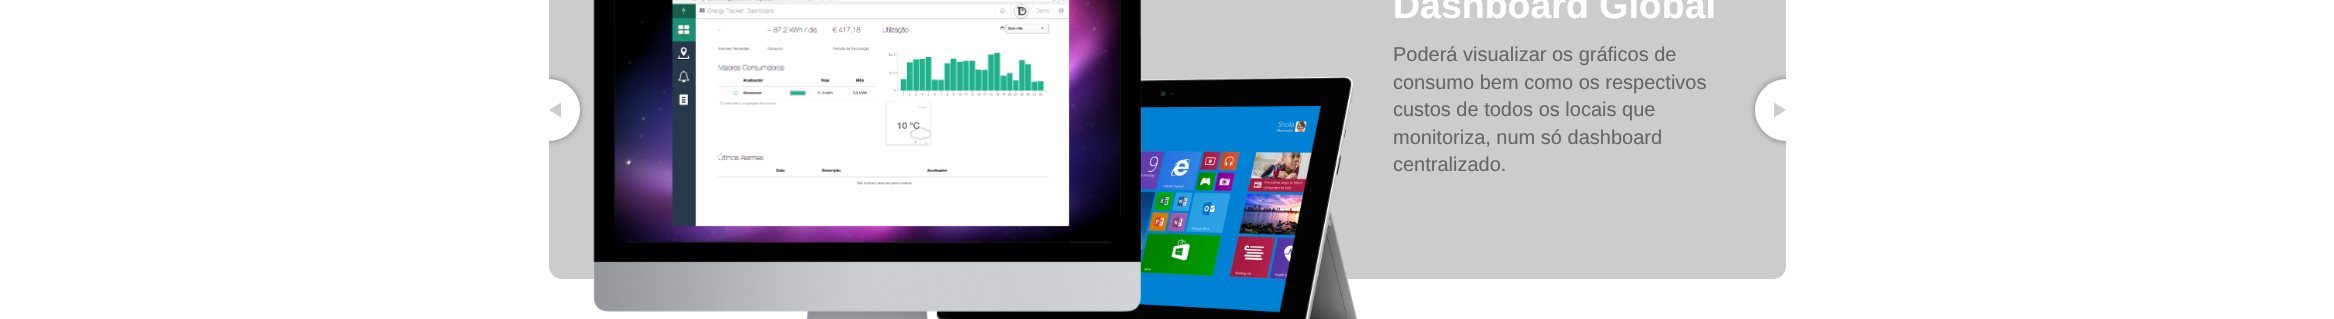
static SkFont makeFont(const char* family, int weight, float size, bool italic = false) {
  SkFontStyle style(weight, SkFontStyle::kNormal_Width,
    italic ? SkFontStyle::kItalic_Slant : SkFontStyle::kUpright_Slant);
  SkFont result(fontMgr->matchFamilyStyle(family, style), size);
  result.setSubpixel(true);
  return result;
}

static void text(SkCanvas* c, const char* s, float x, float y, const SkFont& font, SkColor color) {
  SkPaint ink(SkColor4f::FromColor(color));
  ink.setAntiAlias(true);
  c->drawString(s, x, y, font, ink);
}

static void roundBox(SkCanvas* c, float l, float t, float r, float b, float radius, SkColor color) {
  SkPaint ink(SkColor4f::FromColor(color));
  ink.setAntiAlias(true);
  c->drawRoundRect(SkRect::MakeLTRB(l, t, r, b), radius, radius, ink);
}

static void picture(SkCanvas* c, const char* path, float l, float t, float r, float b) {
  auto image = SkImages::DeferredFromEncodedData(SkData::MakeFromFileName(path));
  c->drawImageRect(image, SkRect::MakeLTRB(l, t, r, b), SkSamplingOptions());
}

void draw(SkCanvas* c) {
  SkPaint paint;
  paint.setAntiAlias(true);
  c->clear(0xffffffff);
  roundBox(c, 549, -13, 1786, 279, 13, 0xffcccccc);
  c->save();
  c->clipRect(SkRect::MakeLTRB(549, 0, 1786, 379));
  paint.setColor(0x66000000);
  paint.setMaskFilter(SkMaskFilter::MakeBlur(kNormal_SkBlurStyle, 3));
  c->drawRoundRect(SkRect::MakeLTRB(518, 79, 580, 141), 31, 31, paint);
  paint.setMaskFilter(nullptr);
  c->restore();
  paint.setColor(0xffffffff);
  c->drawPath(SkPathBuilder().moveTo(549, 79).cubicTo(566, 79, 580, 93, 580, 110).cubicTo(580, 127, 566, 141, 549, 141).close().detach(), paint);
  paint.setColor(0xffcccccc);
  c->drawPath(SkPathBuilder().moveTo(561, 102.5f).lineTo(561, 117.5f).lineTo(549, 110).close().detach(), paint);
  picture(c, "img_02.png", 936, 76, 1358, 319);
  picture(c, "img_01.png", 593, 0, 1142, 319);
  SkFont face1 = makeFont("Liberation Sans", 700, 37.5f);
  text(c, "Dashboard Global", 1393, 18, face1, 0xffffffff);
  SkFont face2 = makeFont("Liberation Sans", 400, 20);
  text(c, "Poderá visualizar os gráficos de", 1393, 61, face2, 0xff666666);
  text(c, "consumo bem como os respectivos", 1393, 89, face2, 0xff666666);
  text(c, "custos de todos os locais que", 1393, 116, face2, 0xff666666);
  text(c, "monitoriza, num só dashboard", 1393, 144, face2, 0xff666666);
  text(c, "centralizado.", 1393, 171, face2, 0xff666666);
  c->save();
  c->clipRect(SkRect::MakeLTRB(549, 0, 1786, 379));
  paint.setColor(0x66000000);
  paint.setMaskFilter(SkMaskFilter::MakeBlur(kNormal_SkBlurStyle, 3));
  c->drawRoundRect(SkRect::MakeLTRB(1755, 79, 1818, 141), 31, 31, paint);
  paint.setMaskFilter(nullptr);
  c->restore();
  paint.setColor(0xffffffff);
  c->drawPath(SkPathBuilder().moveTo(1786, 79).lineTo(1786, 141).cubicTo(1769, 141, 1755, 127, 1755, 110).cubicTo(1755, 93, 1769, 79, 1786, 79).close().detach(), paint);
  paint.setColor(0xffcccccc);
  c->drawPath(SkPathBuilder().moveTo(1774, 117.5f).lineTo(1774, 102.5f).lineTo(1786, 110).close().detach(), paint);
}
